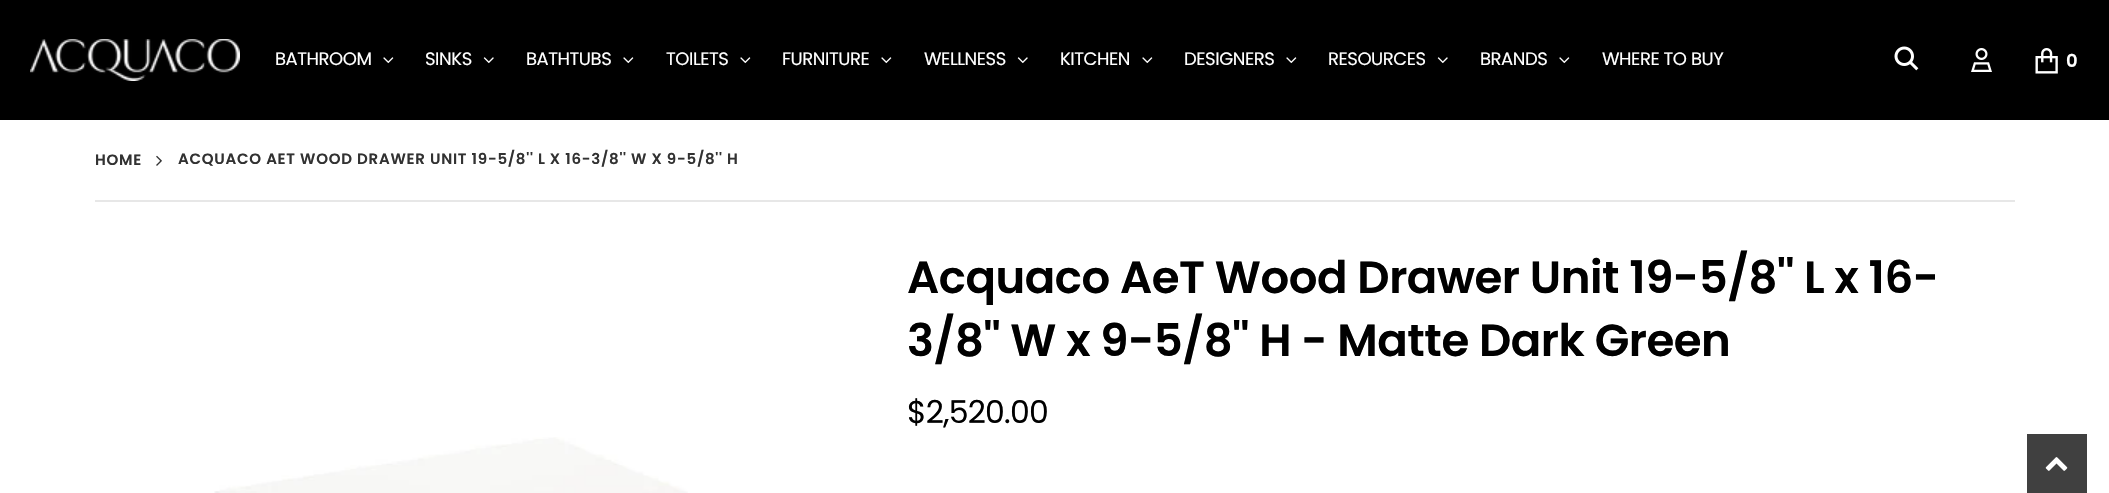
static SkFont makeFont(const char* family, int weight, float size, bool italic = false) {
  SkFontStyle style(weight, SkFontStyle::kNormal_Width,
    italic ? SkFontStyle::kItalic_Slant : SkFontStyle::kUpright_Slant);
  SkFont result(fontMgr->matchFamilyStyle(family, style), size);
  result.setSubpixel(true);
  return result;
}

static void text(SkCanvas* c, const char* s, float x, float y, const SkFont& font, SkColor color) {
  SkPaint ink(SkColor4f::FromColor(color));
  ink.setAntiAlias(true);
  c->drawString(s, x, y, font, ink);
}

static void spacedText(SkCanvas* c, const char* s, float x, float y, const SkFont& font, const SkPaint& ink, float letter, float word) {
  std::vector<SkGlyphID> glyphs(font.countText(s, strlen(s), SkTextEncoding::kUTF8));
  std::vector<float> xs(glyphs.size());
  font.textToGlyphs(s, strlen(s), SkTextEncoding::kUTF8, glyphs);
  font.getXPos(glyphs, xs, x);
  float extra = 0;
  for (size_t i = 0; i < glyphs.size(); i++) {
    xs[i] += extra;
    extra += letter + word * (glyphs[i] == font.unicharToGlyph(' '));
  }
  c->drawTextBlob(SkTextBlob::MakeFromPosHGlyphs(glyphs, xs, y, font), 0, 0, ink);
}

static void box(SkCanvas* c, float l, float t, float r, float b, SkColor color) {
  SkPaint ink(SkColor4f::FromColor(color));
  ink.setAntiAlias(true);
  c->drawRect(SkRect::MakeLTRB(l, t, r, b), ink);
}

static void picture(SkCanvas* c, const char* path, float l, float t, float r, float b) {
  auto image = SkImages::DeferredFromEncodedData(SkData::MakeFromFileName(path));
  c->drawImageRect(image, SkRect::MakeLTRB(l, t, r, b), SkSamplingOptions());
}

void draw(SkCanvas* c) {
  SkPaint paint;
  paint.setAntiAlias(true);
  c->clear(0xffffffff);
  box(c, 0, 0, 2109, 120, 0xff000000);
  picture(c, "img_01.png", 30, 39, 240, 81);
  SkFont face1 = makeFont("Poppins", 400, 18);
  paint.setColor(0xffffffff);
  spacedText(c, "BATHROOM", 275, 65, face1, paint, -0.45f, 0);
  picture(c, "img_02.png", 383, 57, 394, 64);
  spacedText(c, "SINKS", 425, 65, face1, paint, -0.45f, 0);
  picture(c, "img_03.png", 483, 57, 494, 64);
  spacedText(c, "BATHTUBS", 526, 65, face1, paint, -0.45f, 0);
  picture(c, "img_02.png", 623, 57, 634, 64);
  spacedText(c, "TOILETS", 666, 65, face1, paint, -0.45f, 0);
  picture(c, "img_02.png", 740, 57, 751, 64);
  spacedText(c, "FURNITURE", 782, 65, face1, paint, -0.45f, 0);
  picture(c, "img_02.png", 881, 57, 892, 64);
  spacedText(c, "WELLNESS", 924, 65, face1, paint, -0.45f, 0);
  picture(c, "img_03.png", 1017, 57, 1028, 64);
  spacedText(c, "KITCHEN", 1060, 65, face1, paint, -0.45f, 0);
  picture(c, "img_02.png", 1142, 57, 1153, 64);
  spacedText(c, "DESIGNERS", 1184, 65, face1, paint, -0.45f, 0);
  picture(c, "img_02.png", 1286, 57, 1297, 64);
  spacedText(c, "RESOURCES", 1328, 65, face1, paint, -0.45f, 0);
  picture(c, "img_03.png", 1437, 57, 1448, 64);
  spacedText(c, "BRANDS", 1480, 65, face1, paint, -0.45f, 0);
  picture(c, "img_02.png", 1559, 57, 1570, 64);
  spacedText(c, "WHERE TO BUY", 1602, 65, face1, paint, -0.45f, 0);
  picture(c, "img_04.png", 1894, 46, 1919, 71);
  picture(c, "img_05.png", 1971, 48, 1992, 72);
  picture(c, "img_06.png", 2035, 48, 2058, 74);
  SkFont face2 = makeFont("Poppins", 600, 18);
  text(c, "0", 2066, 67, face2, 0xffffffff);
  box(c, 95, 200, 2015, 202, 0xffe7e7e7);
  SkFont face3 = makeFont("Poppins", 600, 15);
  paint.setColor(0xff323232);
  spacedText(c, "HOME", 95, 165, face3, paint, 0.75f, 0);
  picture(c, "img_07.png", 156, 155, 162, 166);
  spacedText(c, "ACQUACO AET WOOD DRAWER UNIT 19-5/8'' L X 16-3/8'' W X 9-5/8'' H", 178, 164, face3, paint, 0.75f, 0);
  SkFont face4 = makeFont("Poppins", 600, 45);
  paint.setColor(0xff000000);
  spacedText(c, "Acquaco AeT Wood Drawer Unit 19-5/8'' L x 16-", 907, 293, face4, paint, -0.45f, 0);
  spacedText(c, "3/8'' W x 9-5/8'' H - Matte Dark Green", 907, 356, face4, paint, -0.45f, 0);
  SkFont face5 = makeFont("Poppins", 400, 31.5f);
  spacedText(c, "$2,520.00", 907, 423, face5, paint, -0.75f, 0);
  picture(c, "img_08.png", 214, 437, 688, 493);
  box(c, 2027, 434, 2087, 493, 0xff404040);
  picture(c, "img_09.png", 2045, 457, 2068, 471);
}
